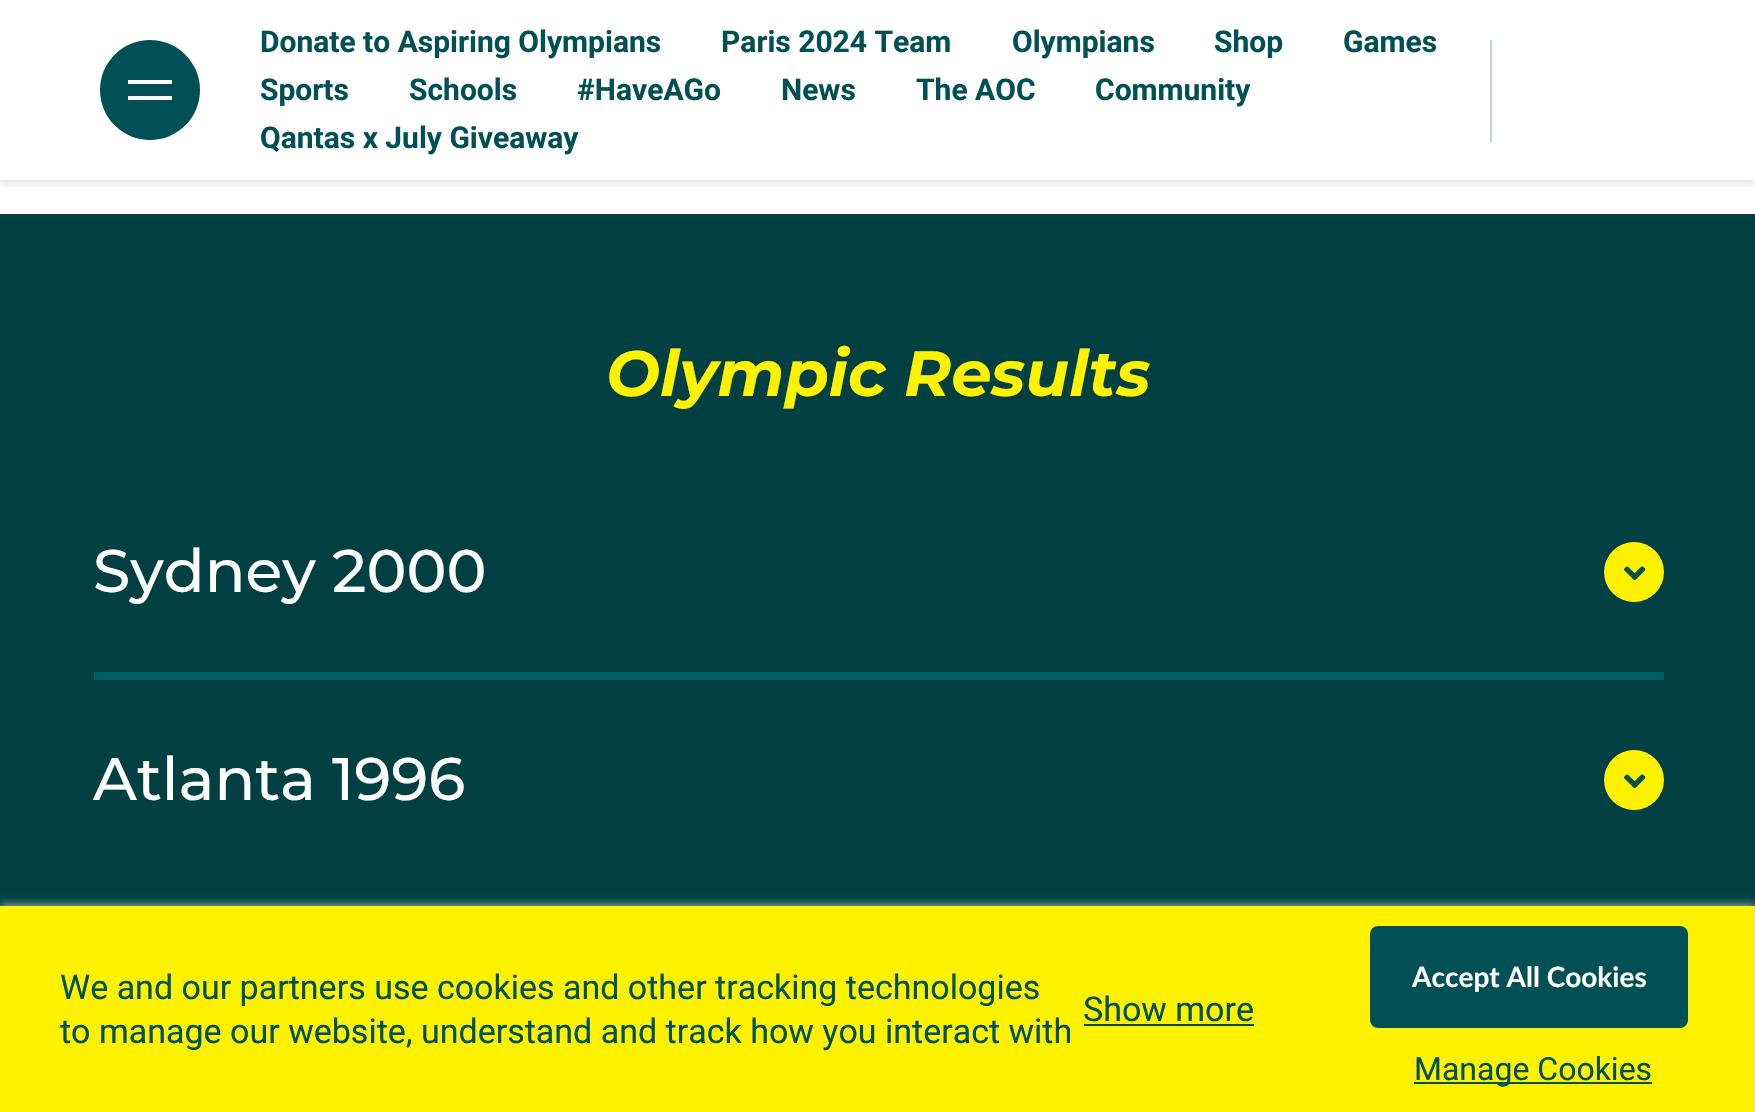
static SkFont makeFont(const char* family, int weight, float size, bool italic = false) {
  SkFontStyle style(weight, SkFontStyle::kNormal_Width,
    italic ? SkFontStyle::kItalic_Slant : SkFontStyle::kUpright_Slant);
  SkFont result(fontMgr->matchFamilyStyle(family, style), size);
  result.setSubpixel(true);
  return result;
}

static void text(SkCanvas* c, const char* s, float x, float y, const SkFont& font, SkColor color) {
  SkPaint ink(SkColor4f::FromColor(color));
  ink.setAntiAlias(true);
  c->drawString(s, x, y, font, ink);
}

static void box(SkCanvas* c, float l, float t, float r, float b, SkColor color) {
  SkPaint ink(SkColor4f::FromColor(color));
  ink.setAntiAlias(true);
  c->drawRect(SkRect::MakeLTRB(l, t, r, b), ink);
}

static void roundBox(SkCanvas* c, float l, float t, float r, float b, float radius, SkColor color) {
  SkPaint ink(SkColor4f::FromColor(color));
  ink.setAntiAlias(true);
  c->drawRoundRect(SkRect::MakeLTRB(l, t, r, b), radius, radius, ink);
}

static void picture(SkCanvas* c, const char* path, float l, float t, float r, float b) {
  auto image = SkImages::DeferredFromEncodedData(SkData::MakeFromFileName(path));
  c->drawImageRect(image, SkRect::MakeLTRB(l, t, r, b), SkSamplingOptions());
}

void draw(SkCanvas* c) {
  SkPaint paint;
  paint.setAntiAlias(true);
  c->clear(0xffffffff);
  c->save();
  c->clipRect(SkRect::MakeLTRB(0, 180, 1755, 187));
  paint.setColor(0x1a000000);
  paint.setMaskFilter(SkMaskFilter::MakeBlur(kNormal_SkBlurStyle, 4));
  c->drawRect(SkRect::MakeLTRB(0, 4, 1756, 184), paint);
  paint.setMaskFilter(nullptr);
  c->restore();
  SkFont face1 = makeFont("Roboto", 700, 30);
  text(c, "Donate to Aspiring Olympians", 260, 52, face1, 0xff005055);
  text(c, "Paris 2024 Team", 721, 52, face1, 0xff005055);
  text(c, "Olympians", 1012, 52, face1, 0xff005055);
  text(c, "Shop", 1214, 52, face1, 0xff005055);
  text(c, "Games", 1343, 52, face1, 0xff005055);
  text(c, "Sports", 260, 100, face1, 0xff005055);
  text(c, "Schools", 409, 100, face1, 0xff005055);
  text(c, "#HaveAGo", 577, 100, face1, 0xff005055);
  text(c, "News", 781, 100, face1, 0xff005055);
  text(c, "The AOC", 916, 100, face1, 0xff005055);
  text(c, "Community", 1095, 100, face1, 0xff005055);
  text(c, "Qantas x July Giveaway", 260, 148, face1, 0xff005055);
  paint.setColor(0xff005055);
  c->drawCircle(150, 90, 50, paint);
  box(c, 128, 80, 172, 84, 0xffffffff);
  box(c, 128, 96, 172, 100, 0xffffffff);
  box(c, 1490, 40, 1492, 142, 0xffbfd3d5);
  box(c, 0, 214, 1755, 906, 0xff004043);
  SkFont face2 = makeFont("Montserrat", 700, 64, true);
  text(c, "Olympic Results", 606, 396, face2, 0xfffff200);
  SkFont face3 = makeFont("Montserrat", 500, 60);
  text(c, "Sydney 2000", 93, 592, face3, 0xffffffff);
  paint.setColor(0xfffff200);
  c->drawCircle(1634, 572, 30, paint);
  picture(c, "img_01.png", 1624, 566, 1646, 581);
  box(c, 94, 672, 1664, 680, 0xff005f65);
  text(c, "Atlanta 1996", 93, 800, face3, 0xffffffff);
  c->drawCircle(1634, 780, 30, paint);
  picture(c, "img_01.png", 1624, 774, 1646, 789);
  paint.setColor(0xffc5c5c5);
  paint.setMaskFilter(SkMaskFilter::MakeBlur(kNormal_SkBlurStyle, 5));
  c->drawRect(SkRect::MakeLTRB(0, 906, 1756, 1112), paint);
  paint.setMaskFilter(nullptr);
  box(c, 0, 906, 1755, 1112, 0xfffff200);
  SkFont face4 = makeFont("Roboto", 400, 34);
  text(c, "We and our partners use cookies and other tracking technologies", 60, 999, face4, 0xff005055);
  text(c, "to manage our website, understand and track how you interact with", 60, 1043, face4, 0xff005055);
  text(c, "Show more", 1083, 1021, face4, 0xff005055);
  box(c, 1084, 1024, 1254, 1026, 0xff005055);
  roundBox(c, 1370, 926, 1688, 1028, 8, 0xff005055);
  SkFont face5 = makeFont("Lato", 700, 28);
  text(c, "Accept All Cookies", 1412, 987, face5, 0xffffffff);
  box(c, 1414, 1082, 1652, 1084, 0xff005055);
  SkFont face6 = makeFont("Roboto", 400, 32);
  text(c, "Manage Cookies", 1414, 1080, face6, 0xff005055);
}
